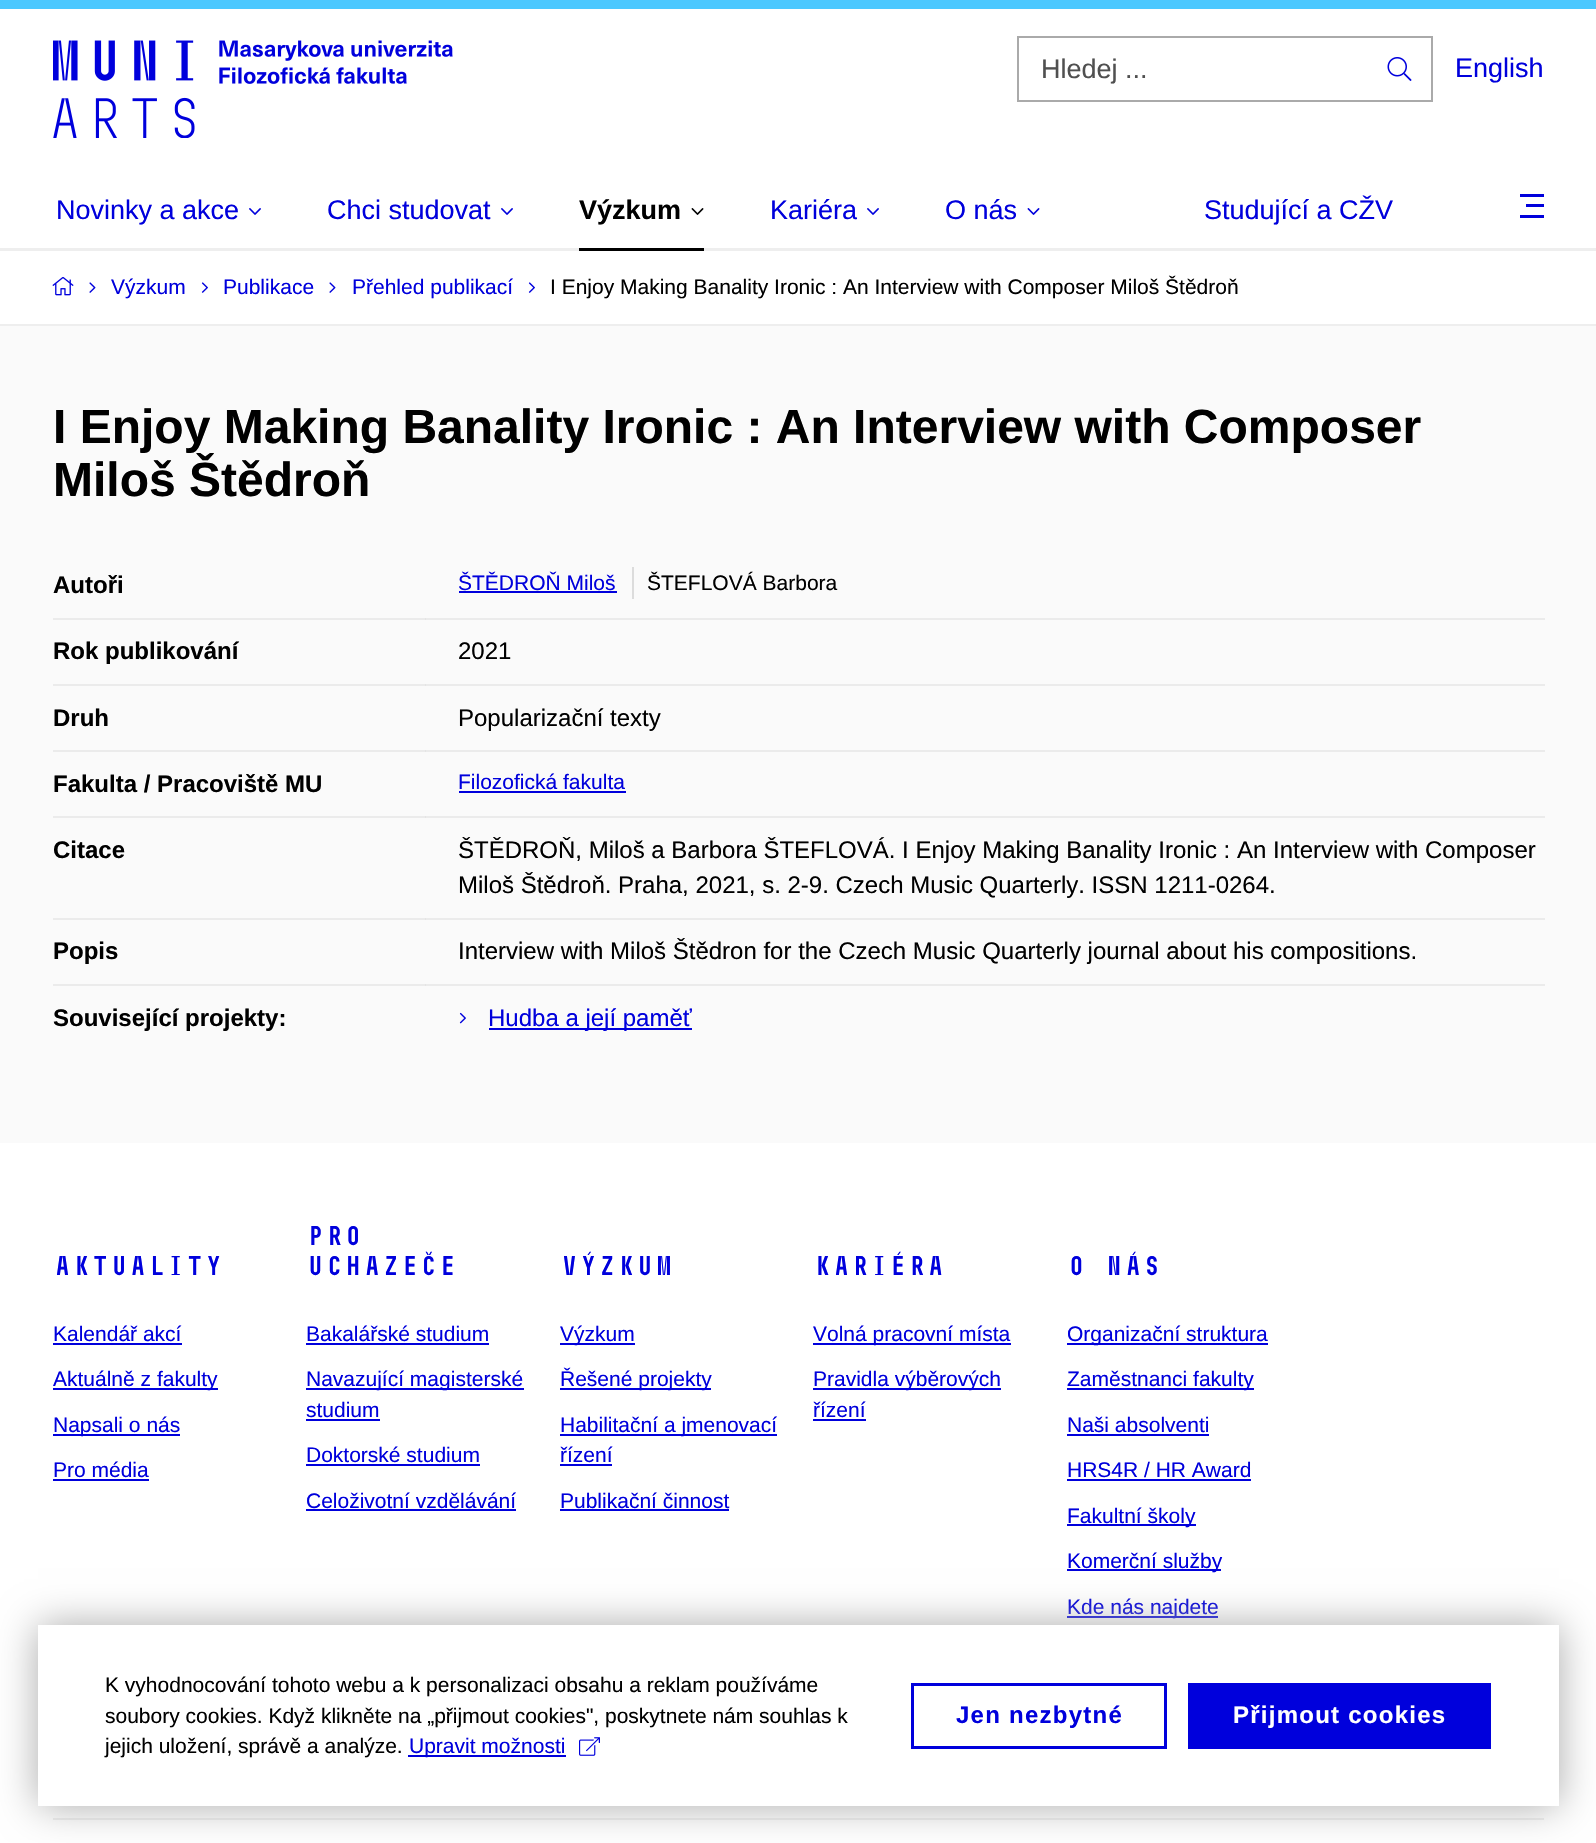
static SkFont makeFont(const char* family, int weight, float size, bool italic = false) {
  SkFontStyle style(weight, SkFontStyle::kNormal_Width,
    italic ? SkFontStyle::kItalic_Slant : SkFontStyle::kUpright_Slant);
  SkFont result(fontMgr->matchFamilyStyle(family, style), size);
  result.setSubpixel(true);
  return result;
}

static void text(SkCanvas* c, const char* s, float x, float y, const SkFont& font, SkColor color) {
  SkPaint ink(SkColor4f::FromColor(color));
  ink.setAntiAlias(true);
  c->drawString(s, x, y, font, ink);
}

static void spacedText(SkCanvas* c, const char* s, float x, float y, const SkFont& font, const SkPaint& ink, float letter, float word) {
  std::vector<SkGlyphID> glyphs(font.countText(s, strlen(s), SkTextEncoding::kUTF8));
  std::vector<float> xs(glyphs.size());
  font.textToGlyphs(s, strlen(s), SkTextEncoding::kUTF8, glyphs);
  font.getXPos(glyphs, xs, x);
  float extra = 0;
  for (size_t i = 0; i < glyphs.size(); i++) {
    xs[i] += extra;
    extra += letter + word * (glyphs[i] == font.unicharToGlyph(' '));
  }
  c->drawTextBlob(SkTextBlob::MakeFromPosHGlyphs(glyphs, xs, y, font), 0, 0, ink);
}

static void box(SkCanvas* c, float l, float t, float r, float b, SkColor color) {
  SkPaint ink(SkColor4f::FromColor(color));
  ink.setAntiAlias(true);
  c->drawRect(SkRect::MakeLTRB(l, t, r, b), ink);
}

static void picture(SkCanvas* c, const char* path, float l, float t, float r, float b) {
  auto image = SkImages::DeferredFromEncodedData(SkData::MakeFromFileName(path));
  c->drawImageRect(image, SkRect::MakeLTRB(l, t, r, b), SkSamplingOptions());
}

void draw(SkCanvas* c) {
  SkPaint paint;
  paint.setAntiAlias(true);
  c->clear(0xfffafafa);
  box(c, 53, 618, 1545, 620, 0xffebebeb);
  box(c, 53, 684, 1545, 686, 0xffebebeb);
  box(c, 53, 750, 1545, 752, 0xffebebeb);
  box(c, 53, 816, 1545, 818, 0xffebebeb);
  box(c, 53, 918, 1545, 920, 0xffebebeb);
  box(c, 53, 984, 1545, 986, 0xffebebeb);
  box(c, 0, 9, 1596, 248, 0xffffffff);
  box(c, 0, 0, 1596, 9, 0xff4bc8ff);
  box(c, 0, 248, 1596, 251, 0xffeeeeee);
  picture(c, "img_01.png", 53, 40, 453, 138);
  paint.setStyle(SkPaint::kStroke_Style);
  paint.setStrokeWidth(2);
  paint.setColor(0xffaaaaaa);
  c->drawRect(SkRect::MakeLTRB(1018, 37, 1432, 101), paint);
  SkFont face1 = makeFont("Liberation Sans", 400, 27);
  text(c, "Hledej ...", 1041, 78, face1, 0xff505050);
  picture(c, "img_02.png", 1387, 57, 1412, 81);
  text(c, "English", 1455, 77, face1, 0xff0000dc);
  text(c, "Novinky a akce", 56, 219, face1, 0xff0000dc);
  picture(c, "img_03.png", 249, 208, 261, 215);
  text(c, "Chci studovat", 327, 219, face1, 0xff0000dc);
  picture(c, "img_03.png", 501, 208, 513, 215);
  SkFont face2 = makeFont("Liberation Sans", 700, 27);
  text(c, "Výzkum", 579, 219, face2, 0xff000000);
  box(c, 579, 248, 704, 251, 0xff000000);
  picture(c, "img_04.png", 691, 208, 704, 215);
  text(c, "Kariéra", 770, 219, face1, 0xff0000dc);
  picture(c, "img_03.png", 867, 208, 879, 215);
  text(c, "O nás", 945, 219, face1, 0xff0000dc);
  picture(c, "img_05.png", 1027, 208, 1040, 215);
  text(c, "Studující a CŽV", 1204, 219, face1, 0xff0000dc);
  box(c, 1520, 194, 1544, 197, 0xff0000dc);
  box(c, 1526, 204, 1544, 207, 0xff0000dc);
  box(c, 1520, 215, 1544, 218, 0xff0000dc);
  box(c, 0, 251, 1596, 324, 0xffffffff);
  box(c, 0, 324, 1596, 326, 0xffeeeeee);
  picture(c, "img_06.png", 52, 277, 74, 296);
  picture(c, "img_07.png", 89, 282, 96, 293);
  SkFont face3 = makeFont("Liberation Sans", 400, 21);
  text(c, "Výzkum", 111, 294, face3, 0xff0000dc);
  picture(c, "img_08.png", 201, 282, 208, 293);
  text(c, "Publikace", 223, 294, face3, 0xff0000dc);
  picture(c, "img_07.png", 329, 282, 336, 293);
  text(c, "Přehled publikací", 352, 294, face3, 0xff0000dc);
  picture(c, "img_08.png", 528, 282, 535, 293);
  text(c, "I Enjoy Making Banality Ironic : An Interview with Composer Miloš Štědroň", 550, 294, face3, 0xff000000);
  SkFont face4 = makeFont("Liberation Sans", 700, 48);
  text(c, "I Enjoy Making Banality Ironic : An Interview with Composer", 53, 443, face4, 0xff000000);
  text(c, "Miloš Štědroň", 53, 496, face4, 0xff000000);
  SkFont face5 = makeFont("Liberation Sans", 700, 24);
  text(c, "Autoři", 53, 593, face5, 0xff000000);
  box(c, 425, 618, 426, 620, 0xffe4e4e4);
  box(c, 632, 567, 634, 599, 0xffdcdcdc);
  text(c, "ŠTĚDROŇ Miloš", 458, 590, face3, 0xff0000dc);
  box(c, 459, 591, 617, 593, 0xff0000dc);
  text(c, "ŠTEFLOVÁ Barbora", 647, 590, face3, 0xff000000);
  text(c, "Rok publikování", 53, 659, face5, 0xff000000);
  box(c, 425, 684, 426, 686, 0xffe4e4e4);
  SkFont face6 = makeFont("Liberation Sans", 400, 24);
  text(c, "2021", 458, 659, face6, 0xff000000);
  text(c, "Druh", 53, 726, face5, 0xff000000);
  box(c, 425, 750, 426, 752, 0xffe4e4e4);
  text(c, "Popularizační texty", 458, 726, face6, 0xff000000);
  text(c, "Fakulta / Pracoviště MU", 53, 792, face5, 0xff000000);
  box(c, 425, 816, 426, 818, 0xffe4e4e4);
  text(c, "Filozofická fakulta", 458, 789, face3, 0xff0000dc);
  box(c, 459, 791, 626, 793, 0xff0000dc);
  text(c, "Citace", 53, 858, face5, 0xff000000);
  box(c, 425, 918, 426, 920, 0xffe4e4e4);
  text(c, "ŠTĚDROŇ, Miloš a Barbora ŠTEFLOVÁ. I Enjoy Making Banality Ironic : An Interview with Composer", 458, 858, face6, 0xff000000);
  text(c, "Miloš Štědroň. Praha, 2021, s. 2-9. Czech Music Quarterly. ISSN 1211-0264.", 458, 893, face6, 0xff000000);
  text(c, "Popis", 53, 959, face5, 0xff000000);
  box(c, 425, 984, 426, 986, 0xffe4e4e4);
  text(c, "Interview with Miloš Štědron for the Czech Music Quarterly journal about his compositions.", 458, 959, face6, 0xff000000);
  text(c, "Související projekty:", 53, 1026, face5, 0xff000000);
  picture(c, "img_09.png", 459, 1012, 466, 1024);
  box(c, 489, 1028, 692, 1030, 0xff0000dc);
  text(c, "Hudba a její paměť", 488, 1026, face6, 0xff0000dc);
  box(c, 0, 1143, 1596, 1843, 0xffffffff);
  box(c, 53, 1818, 1544, 1820, 0xffeeeeee);
  SkFont face7 = makeFont("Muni", 700, 27);
  text(c, "Aktuality", 53, 1275, face7, 0xff0000dc);
  text(c, "Kalendář akcí", 53, 1341, face3, 0xff0000dc);
  box(c, 53, 1343, 182, 1345, 0xff0000dc);
  box(c, 53, 1388, 218, 1390, 0xff0000dc);
  text(c, "Aktuálně z fakulty", 53, 1386, face3, 0xff0000dc);
  box(c, 53, 1434, 180, 1436, 0xff0000dc);
  text(c, "Napsali o nás", 53, 1432, face3, 0xff0000dc);
  text(c, "Pro média", 53, 1477, face3, 0xff0000dc);
  box(c, 53, 1479, 149, 1481, 0xff0000dc);
  text(c, "Pro", 306, 1245, face7, 0xff0000dc);
  text(c, "uchazeče", 306, 1275, face7, 0xff0000dc);
  text(c, "Bakalářské studium", 306, 1341, face3, 0xff0000dc);
  box(c, 306, 1343, 489, 1345, 0xff0000dc);
  box(c, 306, 1388, 524, 1390, 0xff0000dc);
  text(c, "Navazující magisterské", 306, 1386, face3, 0xff0000dc);
  text(c, "studium", 306, 1417, face3, 0xff0000dc);
  box(c, 306, 1419, 380, 1421, 0xff0000dc);
  text(c, "Doktorské studium", 306, 1462, face3, 0xff0000dc);
  box(c, 306, 1464, 480, 1466, 0xff0000dc);
  text(c, "Celoživotní vzdělávání", 306, 1508, face3, 0xff0000dc);
  box(c, 306, 1509, 516, 1511, 0xff0000dc);
  text(c, "Výzkum", 560, 1275, face7, 0xff0000dc);
  box(c, 560, 1343, 635, 1345, 0xff0000dc);
  text(c, "Výzkum", 560, 1341, face3, 0xff0000dc);
  box(c, 560, 1388, 711, 1390, 0xff0000dc);
  text(c, "Řešené projekty", 560, 1386, face3, 0xff0000dc);
  box(c, 560, 1434, 777, 1436, 0xff0000dc);
  text(c, "Habilitační a jmenovací", 560, 1432, face3, 0xff0000dc);
  text(c, "řízení", 560, 1462, face3, 0xff0000dc);
  box(c, 560, 1464, 612, 1466, 0xff0000dc);
  text(c, "Publikační činnost", 560, 1508, face3, 0xff0000dc);
  box(c, 560, 1509, 729, 1511, 0xff0000dc);
  text(c, "Kariéra", 813, 1275, face7, 0xff0000dc);
  box(c, 813, 1343, 1011, 1345, 0xff0000dc);
  text(c, "Volná pracovní místa", 813, 1341, face3, 0xff0000dc);
  box(c, 813, 1388, 1001, 1390, 0xff0000dc);
  text(c, "Pravidla výběrových", 813, 1386, face3, 0xff0000dc);
  text(c, "řízení", 813, 1417, face3, 0xff0000dc);
  box(c, 813, 1419, 866, 1421, 0xff0000dc);
  text(c, "O nás", 1067, 1275, face7, 0xff0000dc);
  box(c, 1067, 1343, 1268, 1345, 0xff0000dc);
  text(c, "Organizační struktura", 1067, 1341, face3, 0xff0000dc);
  box(c, 1067, 1388, 1254, 1390, 0xff0000dc);
  text(c, "Zaměstnanci fakulty", 1067, 1386, face3, 0xff0000dc);
  text(c, "Naši absolventi", 1067, 1432, face3, 0xff0000dc);
  box(c, 1067, 1434, 1209, 1436, 0xff0000dc);
  text(c, "HRS4R / HR Award", 1067, 1477, face3, 0xff0000dc);
  box(c, 1067, 1479, 1251, 1481, 0xff0000dc);
  box(c, 1067, 1524, 1196, 1526, 0xff0000dc);
  text(c, "Fakultní školy", 1067, 1523, face3, 0xff0000dc);
  box(c, 1067, 1569, 1221, 1571, 0xff0000dc);
  text(c, "Komerční služby", 1067, 1568, face3, 0xff0000dc);
  box(c, 1067, 1616, 1218, 1618, 0xff0000dc);
  text(c, "Kde nás najdete", 1067, 1614, face3, 0xff0000dc);
  paint.setStyle(SkPaint::kFill_Style);
  paint.setMaskFilter(SkMaskFilter::MakeBlur(kNormal_SkBlurStyle, 19));
  c->drawRect(SkRect::MakeLTRB(38, 1625, 1559, 1806), paint);
  paint.setMaskFilter(nullptr);
  box(c, 38, 1625, 1559, 1806, 0xffffffff);
  text(c, "K vyhodnocování tohoto webu a k personalizaci obsahu a reklam používáme", 105, 1692, face3, 0xff000000);
  text(c, "soubory cookies. Když klikněte na „přijmout cookies\", poskytnete nám souhlas k", 105, 1723, face3, 0xff000000);
  text(c, "jejich uložení, správě a analýze.", 105, 1753, face3, 0xff000000);
  box(c, 408, 1755, 566, 1757, 0xff0000dc);
  text(c, "Upravit možnosti", 409, 1753, face3, 0xff0000dc);
  picture(c, "img_10.png", 579, 1737, 600, 1756);
  paint.setStyle(SkPaint::kStroke_Style);
  paint.setStrokeWidth(3);
  paint.setColor(0xff0000dc);
  c->drawRect(SkRect::MakeLTRB(912.5f, 1684.5f, 1165.5f, 1747.5f), paint);
  paint.setStyle(SkPaint::kFill_Style);
  spacedText(c, "Jen nezbytné", 956, 1723, face5, paint, 1.25f, 0);
  box(c, 1188, 1683, 1491, 1749, 0xff0000dc);
  paint.setColor(0xffffffff);
  spacedText(c, "Přijmout cookies", 1233, 1723, face5, paint, 1.25f, 0);
}
